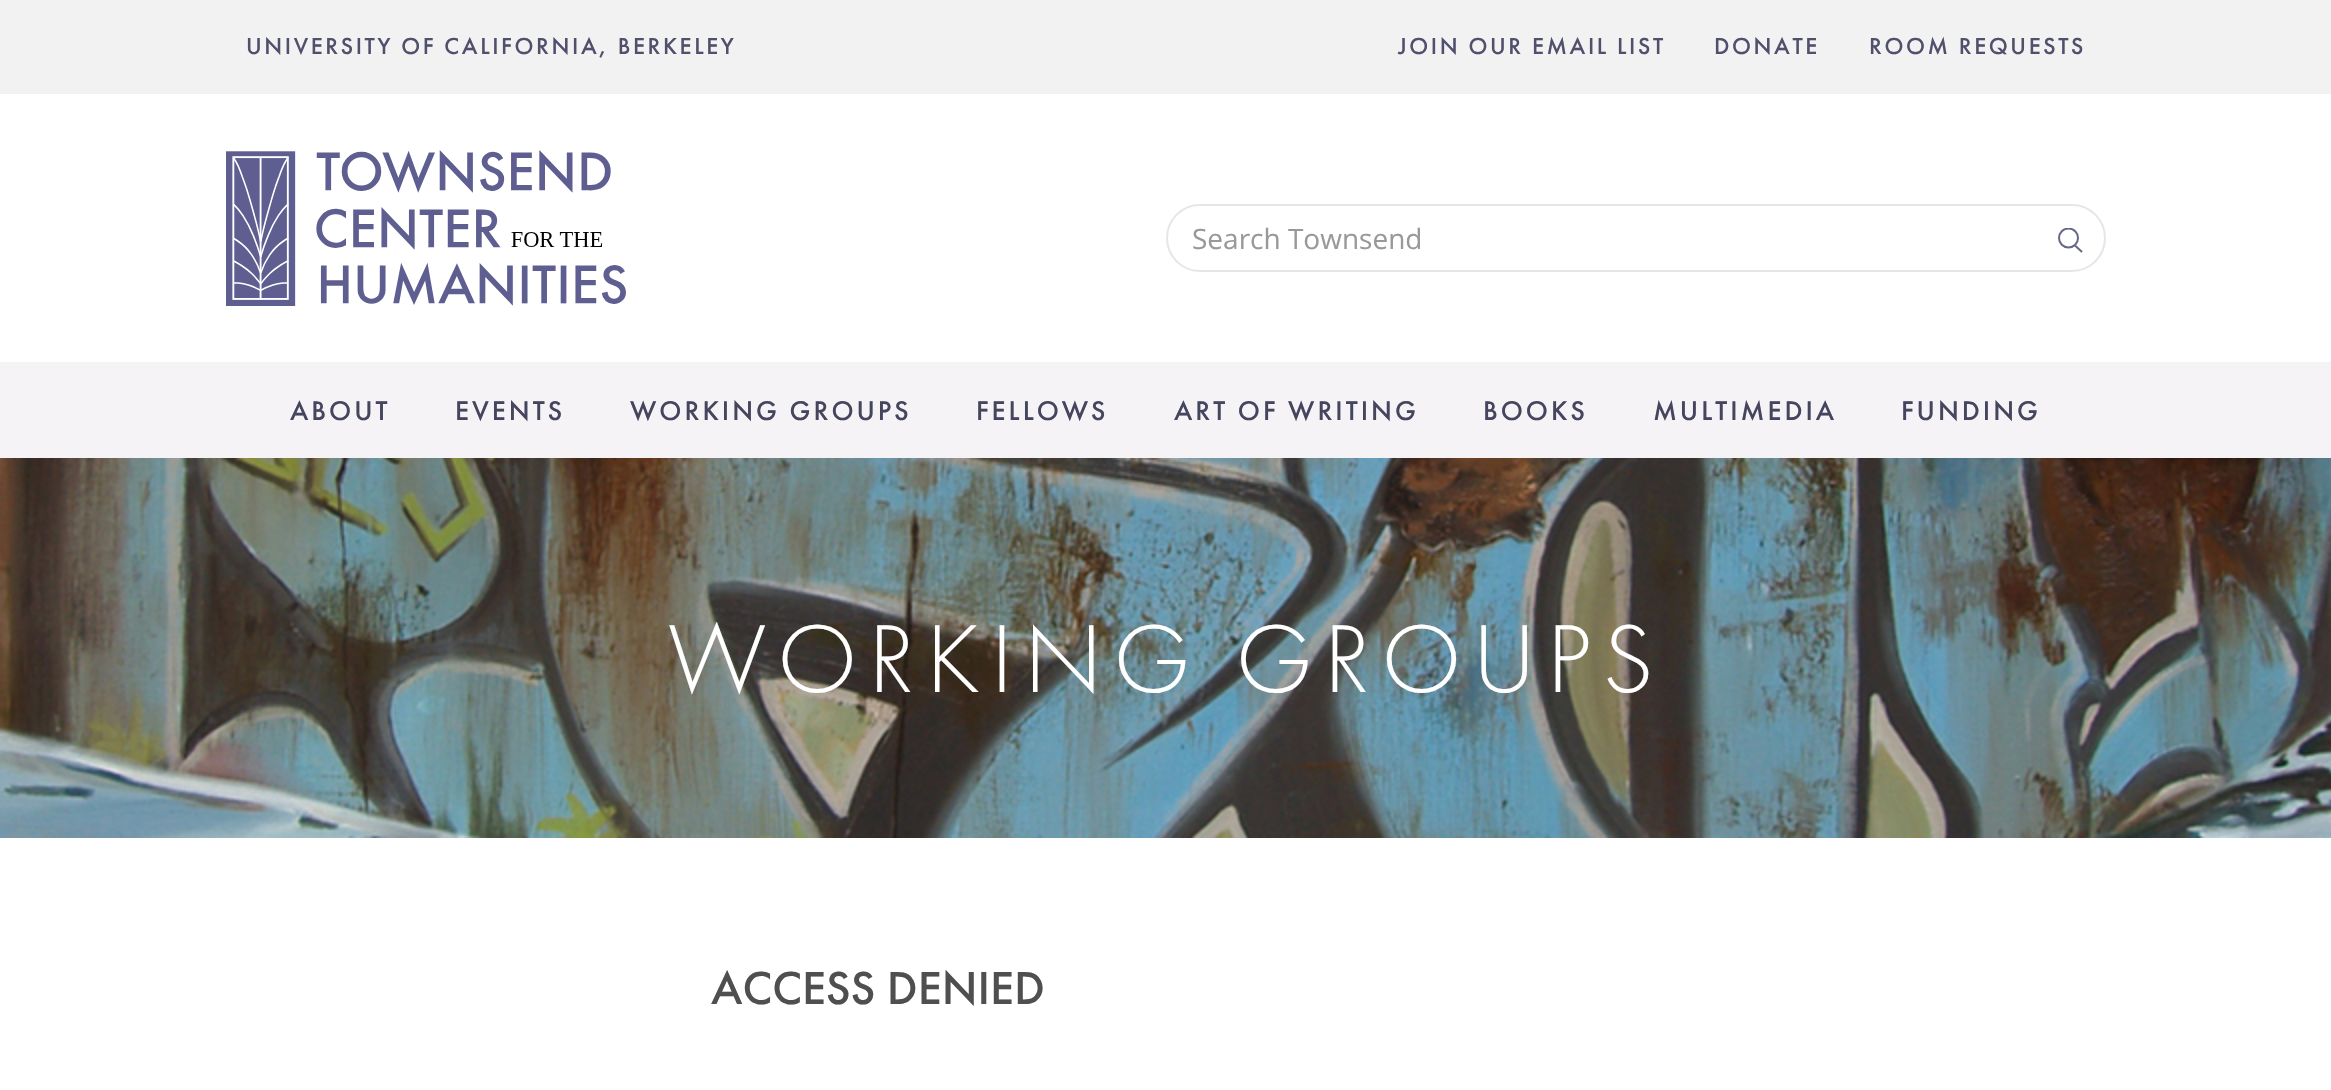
static SkFont makeFont(const char* family, int weight, float size, bool italic = false) {
  SkFontStyle style(weight, SkFontStyle::kNormal_Width,
    italic ? SkFontStyle::kItalic_Slant : SkFontStyle::kUpright_Slant);
  SkFont result(fontMgr->matchFamilyStyle(family, style), size);
  result.setSubpixel(true);
  return result;
}

static void text(SkCanvas* c, const char* s, float x, float y, const SkFont& font, SkColor color) {
  SkPaint ink(SkColor4f::FromColor(color));
  ink.setAntiAlias(true);
  c->drawString(s, x, y, font, ink);
}

static void spacedText(SkCanvas* c, const char* s, float x, float y, const SkFont& font, const SkPaint& ink, float letter, float word) {
  std::vector<SkGlyphID> glyphs(font.countText(s, strlen(s), SkTextEncoding::kUTF8));
  std::vector<float> xs(glyphs.size());
  font.textToGlyphs(s, strlen(s), SkTextEncoding::kUTF8, glyphs);
  font.getXPos(glyphs, xs, x);
  float extra = 0;
  for (size_t i = 0; i < glyphs.size(); i++) {
    xs[i] += extra;
    extra += letter + word * (glyphs[i] == font.unicharToGlyph(' '));
  }
  c->drawTextBlob(SkTextBlob::MakeFromPosHGlyphs(glyphs, xs, y, font), 0, 0, ink);
}

static void box(SkCanvas* c, float l, float t, float r, float b, SkColor color) {
  SkPaint ink(SkColor4f::FromColor(color));
  ink.setAntiAlias(true);
  c->drawRect(SkRect::MakeLTRB(l, t, r, b), ink);
}

static void picture(SkCanvas* c, const char* path, float l, float t, float r, float b) {
  auto image = SkImages::DeferredFromEncodedData(SkData::MakeFromFileName(path));
  c->drawImageRect(image, SkRect::MakeLTRB(l, t, r, b), SkSamplingOptions());
}

void draw(SkCanvas* c) {
  SkPaint paint;
  paint.setAntiAlias(true);
  c->clear(0xffffffff);
  box(c, 0, 0, 2331, 94, 0xfff2f2f2);
  SkFont face1 = makeFont("Futura PT", 500, 24);
  paint.setColor(0xff50506d);
  spacedText(c, "UNIVERSITY OF CALIFORNIA, BERKELEY", 246, 54, face1, paint, 2.6f, 0);
  spacedText(c, "JOIN OUR EMAIL LIST", 1398, 54, face1, paint, 2.6f, 0);
  spacedText(c, "DONATE", 1714, 54, face1, paint, 2.6f, 0);
  spacedText(c, "ROOM REQUESTS", 1869, 54, face1, paint, 2.6f, 0);
  picture(c, "img_01.png", 226, 150, 626, 306);
  paint.setStyle(SkPaint::kStroke_Style);
  paint.setStrokeWidth(2);
  paint.setColor(0xffe6e6e6);
  c->drawRoundRect(SkRect::MakeLTRB(1167, 205, 2105, 271), 33, 33, paint);
  SkFont face2 = makeFont("Open Sans", 400, 28);
  text(c, "Search Townsend", 1192, 249, face2, 0xff999999);
  c->save();
  c->clipRect(SkRect::MakeLTRB(2058, 228, 2084, 254));
  paint.setColor(0xff66668a);
  c->drawCircle(2068.5f, 238, 9.5f, paint);
  c->restore();
  c->drawPath(SkPathBuilder().moveTo(2075, 245.5f).lineTo(2082, 252).detach(), paint);
  box(c, 0, 362, 2331, 458, 0xfff6f3f7);
  SkFont face3 = makeFont("Futura PT", 500, 28);
  paint.setStyle(SkPaint::kFill_Style);
  paint.setColor(0xff45455e);
  spacedText(c, "ABOUT", 290, 420, face3, paint, 3, 0);
  spacedText(c, "EVENTS", 455, 420, face3, paint, 3, 0);
  spacedText(c, "WORKING GROUPS", 630, 420, face3, paint, 3, 0);
  spacedText(c, "FELLOWS", 976, 420, face3, paint, 3, 0);
  spacedText(c, "ART OF WRITING", 1174, 420, face3, paint, 3, 0);
  spacedText(c, "BOOKS", 1483, 420, face3, paint, 3, 0);
  spacedText(c, "MULTIMEDIA", 1653, 420, face3, paint, 3, 0);
  spacedText(c, "FUNDING", 1901, 420, face3, paint, 3, 0);
  picture(c, "img_02.png", 0, 458, 2331, 838);
  SkFont face4 = makeFont("Futura PT", 300, 100);
  paint.setColor(0xffffffff);
  spacedText(c, "WORKING GROUPS", 668, 692, face4, paint, 10.9f, 0);
  SkFont face5 = makeFont("Futura PT", 500, 48);
  text(c, "ACCESS DENIED", 711, 1004, face5, 0xff4f4f4f);
}
